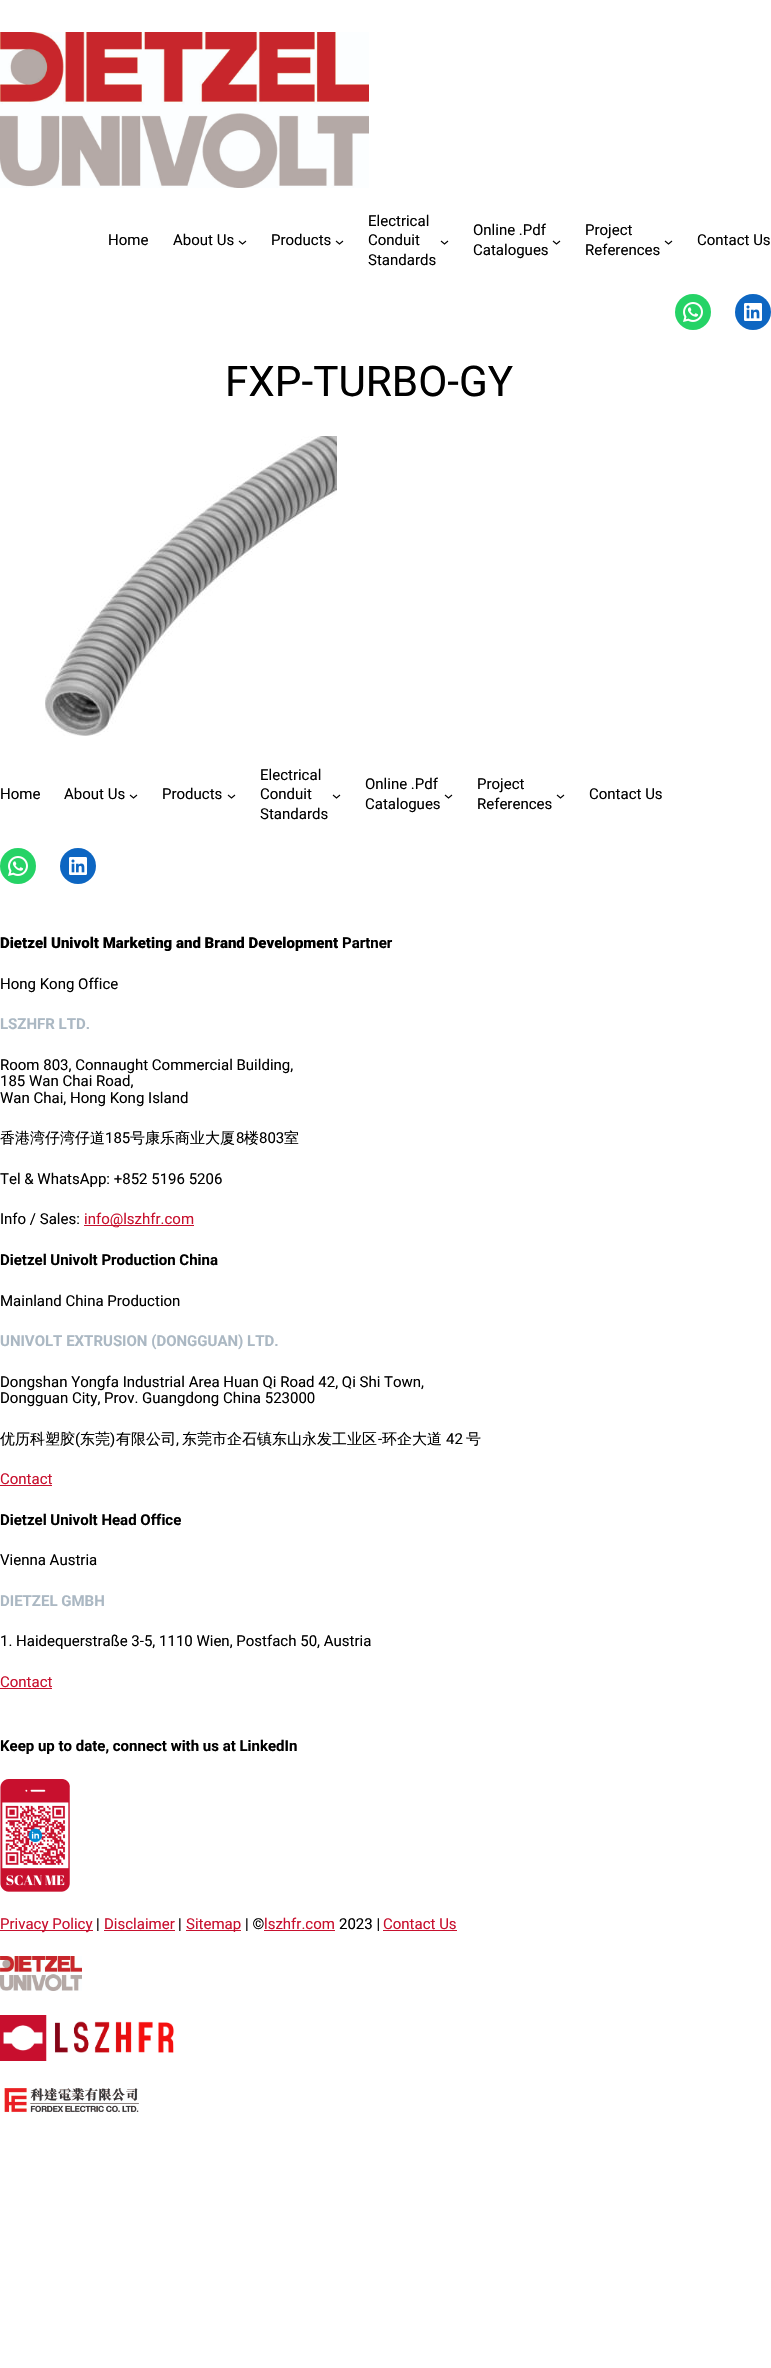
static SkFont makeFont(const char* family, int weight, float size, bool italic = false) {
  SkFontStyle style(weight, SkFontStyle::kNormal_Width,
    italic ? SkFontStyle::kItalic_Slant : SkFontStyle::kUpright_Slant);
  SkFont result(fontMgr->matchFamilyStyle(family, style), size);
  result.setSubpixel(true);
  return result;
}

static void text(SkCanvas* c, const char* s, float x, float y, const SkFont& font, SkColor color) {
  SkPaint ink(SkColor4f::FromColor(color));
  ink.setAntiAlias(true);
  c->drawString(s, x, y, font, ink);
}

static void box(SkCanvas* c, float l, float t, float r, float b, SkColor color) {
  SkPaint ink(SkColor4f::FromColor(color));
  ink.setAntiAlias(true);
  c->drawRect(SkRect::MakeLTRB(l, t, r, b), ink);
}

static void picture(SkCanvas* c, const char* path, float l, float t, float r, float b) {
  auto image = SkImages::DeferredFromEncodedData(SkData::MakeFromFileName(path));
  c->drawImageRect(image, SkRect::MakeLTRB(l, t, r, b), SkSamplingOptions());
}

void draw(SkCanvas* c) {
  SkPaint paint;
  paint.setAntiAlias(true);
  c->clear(0xffffffff);
  picture(c, "img_01.png", 0, 32, 369, 188);
  SkFont face1 = makeFont("Roboto", 400, 15);
  text(c, "Home", 108, 245, face1, 0xff000000);
  text(c, "About Us", 173, 245, face1, 0xff000000);
  paint.setStyle(SkPaint::kStroke_Style);
  paint.setStrokeWidth(1.1f);
  paint.setColor(0xff000000);
  c->drawPath(SkPathBuilder().moveTo(239, 241).lineTo(242.5f, 244).lineTo(246, 241).detach(), paint);
  text(c, "Products", 271, 245, face1, 0xff000000);
  c->drawPath(SkPathBuilder().moveTo(336, 241).lineTo(339.5f, 244).lineTo(343, 241).detach(), paint);
  text(c, "Electrical", 368, 226, face1, 0xff000000);
  text(c, "Conduit", 368, 245, face1, 0xff000000);
  text(c, "Standards", 368, 265, face1, 0xff000000);
  c->drawPath(SkPathBuilder().moveTo(441, 241).lineTo(444.5f, 244).lineTo(448, 241).detach(), paint);
  text(c, "Online .Pdf", 473, 235, face1, 0xff000000);
  text(c, "Catalogues", 473, 255, face1, 0xff000000);
  c->drawPath(SkPathBuilder().moveTo(553, 241).lineTo(556.5f, 244).lineTo(560, 241).detach(), paint);
  text(c, "Project", 585, 235, face1, 0xff000000);
  text(c, "References", 585, 255, face1, 0xff000000);
  c->drawPath(SkPathBuilder().moveTo(665, 241).lineTo(668.5f, 244).lineTo(672, 241).detach(), paint);
  text(c, "Contact Us", 697, 245, face1, 0xff000000);
  paint.setStyle(SkPaint::kFill_Style);
  paint.setColor(0xff25d366);
  c->drawCircle(693, 312, 18, paint);
  picture(c, "img_02.png", 683, 302, 703, 322);
  paint.setColor(0xff0d66c2);
  c->drawCircle(753, 312, 18, paint);
  picture(c, "img_03.png", 744, 303, 762, 321);
  SkFont face2 = makeFont("Roboto", 400, 42.25f);
  text(c, "FXP-TURBO-GY", 225, 396, face2, 0xff000000);
  picture(c, "img_04.png", 45, 436, 337, 736);
  text(c, "Home", 0, 799, face1, 0xff000000);
  text(c, "About Us", 64, 799, face1, 0xff000000);
  paint.setStyle(SkPaint::kStroke_Style);
  paint.setColor(0xff000000);
  c->drawPath(SkPathBuilder().moveTo(130, 795).lineTo(133.5f, 798).lineTo(137, 795).detach(), paint);
  text(c, "Products", 162, 799, face1, 0xff000000);
  c->drawPath(SkPathBuilder().moveTo(228, 795).lineTo(231.5f, 798).lineTo(235, 795).detach(), paint);
  text(c, "Electrical", 260, 780, face1, 0xff000000);
  text(c, "Conduit", 260, 799, face1, 0xff000000);
  text(c, "Standards", 260, 819, face1, 0xff000000);
  c->drawPath(SkPathBuilder().moveTo(333, 795).lineTo(336.5f, 798).lineTo(340, 795).detach(), paint);
  text(c, "Online .Pdf", 365, 789, face1, 0xff000000);
  text(c, "Catalogues", 365, 809, face1, 0xff000000);
  c->drawPath(SkPathBuilder().moveTo(445, 795).lineTo(448.5f, 798).lineTo(452, 795).detach(), paint);
  text(c, "Project", 477, 789, face1, 0xff000000);
  text(c, "References", 477, 809, face1, 0xff000000);
  c->drawPath(SkPathBuilder().moveTo(557, 795).lineTo(560.5f, 798).lineTo(564, 795).detach(), paint);
  text(c, "Contact Us", 589, 799, face1, 0xff000000);
  paint.setStyle(SkPaint::kFill_Style);
  paint.setColor(0xff25d366);
  c->drawCircle(18, 866, 18, paint);
  picture(c, "img_02.png", 8, 856, 28, 876);
  paint.setColor(0xff0d66c2);
  c->drawCircle(78, 866, 18, paint);
  picture(c, "img_03.png", 69, 857, 87, 875);
  SkFont face3 = makeFont("Roboto", 900, 15);
  text(c, "Dietzel Univolt Marketing and Brand Development", 0, 948, face3, 0xff000000);
  SkFont face4 = makeFont("Roboto", 700, 15);
  text(c, "Partner", 342, 948, face4, 0xff000000);
  text(c, "Hong Kong Office", 0, 989, face1, 0xff000000);
  text(c, "LSZHFR LTD.", 0, 1029, face4, 0xffabb8c3);
  text(c, "Room 803, Connaught Commercial Building,", 0, 1070, face1, 0xff000000);
  text(c, "185 Wan Chai Road,", 0, 1086, face1, 0xff000000);
  text(c, "Wan Chai, Hong Kong Island", 0, 1103, face1, 0xff000000);
  SkFont face5 = makeFont("WenQuanYi Zen Hei", 500, 15);
  text(c, "香港湾仔湾仔道", 0, 1143, face5, 0xff000000);
  text(c, "185", 105, 1143, face1, 0xff000000);
  text(c, "号康乐商业大厦", 130, 1143, face5, 0xff000000);
  text(c, "8", 236, 1143, face1, 0xff000000);
  text(c, "楼", 244, 1143, face5, 0xff000000);
  text(c, "803", 259, 1143, face1, 0xff000000);
  text(c, "室", 284, 1143, face5, 0xff000000);
  text(c, "Tel & WhatsApp: +852 5196 5206", 0, 1184, face1, 0xff000000);
  text(c, "Info / Sales:", 0, 1224, face1, 0xff000000);
  box(c, 84, 1225, 194, 1226, 0xffc8102e);
  text(c, "info@lszhfr.com", 84, 1224, face1, 0xffc8102e);
  text(c, "Dietzel Univolt Production China", 0, 1265, face4, 0xff000000);
  text(c, "Mainland China Production", 0, 1306, face1, 0xff000000);
  text(c, "UNIVOLT EXTRUSION (DONGGUAN) LTD.", 0, 1346, face4, 0xffabb8c3);
  text(c, "Dongshan Yongfa Industrial Area Huan Qi Road 42, Qi Shi Town,", 0, 1387, face1, 0xff000000);
  text(c, "Dongguan City, Prov. Guangdong China 523000", 0, 1403, face1, 0xff000000);
  text(c, "优历科塑胶", 0, 1444, face5, 0xff000000);
  text(c, "(", 75, 1444, face1, 0xff000000);
  text(c, "东莞", 80, 1444, face5, 0xff000000);
  text(c, ")", 110, 1444, face1, 0xff000000);
  text(c, "有限公司", 116, 1444, face5, 0xff000000);
  text(c, "东莞市企石镇东山永发工业区", 182, 1444, face5, 0xff000000);
  text(c, "-", 378, 1444, face1, 0xff000000);
  text(c, "环企大道", 382, 1444, face5, 0xff000000);
  text(c, "42", 446, 1444, face1, 0xff000000);
  text(c, "号", 466, 1444, face5, 0xff000000);
  text(c, ",", 176, 1444, face1, 0xff000000);
  text(c, "Contact", 0, 1484, face1, 0xffc8102e);
  box(c, 0, 1485, 52, 1486, 0xffc8102e);
  text(c, "Dietzel Univolt Head Office", 0, 1525, face4, 0xff000000);
  text(c, "Vienna Austria", 0, 1565, face1, 0xff000000);
  text(c, "DIETZEL GMBH", 0, 1606, face4, 0xffabb8c3);
  text(c, "1. Haidequerstraße 3-5, 1110 Wien, Postfach 50, Austria", 0, 1646, face1, 0xff000000);
  text(c, "Contact", 0, 1687, face1, 0xffc8102e);
  box(c, 0, 1688, 52, 1689, 0xffc8102e);
  text(c, "Keep up to date, connect with us at LinkedIn", 0, 1751, face4, 0xff000000);
  picture(c, "img_05.png", 0, 1779, 70, 1892);
  box(c, 0, 1930, 93, 1931, 0xffc8102e);
  text(c, "Privacy Policy", 0, 1929, face1, 0xffc8102e);
  text(c, "|", 96, 1929, face1, 0xff000000);
  text(c, "Disclaimer", 104, 1929, face1, 0xffc8102e);
  box(c, 104, 1930, 175, 1931, 0xffc8102e);
  text(c, "|", 178, 1929, face1, 0xff000000);
  box(c, 186, 1930, 241, 1931, 0xffc8102e);
  text(c, "Sitemap", 186, 1929, face1, 0xffc8102e);
  text(c, "| ©", 245, 1929, face1, 0xff000000);
  text(c, "lszhfr.com", 264, 1929, face1, 0xffc8102e);
  box(c, 264, 1930, 335, 1931, 0xffc8102e);
  text(c, "2023 |", 339, 1929, face1, 0xff000000);
  text(c, "Contact Us", 383, 1929, face1, 0xffc8102e);
  box(c, 383, 1930, 457, 1931, 0xffc8102e);
  picture(c, "img_06.png", 0, 1956, 82, 1991);
  picture(c, "img_07.png", 0, 2015, 174, 2061);
  picture(c, "img_08.png", 4, 2088, 139, 2113);
}
